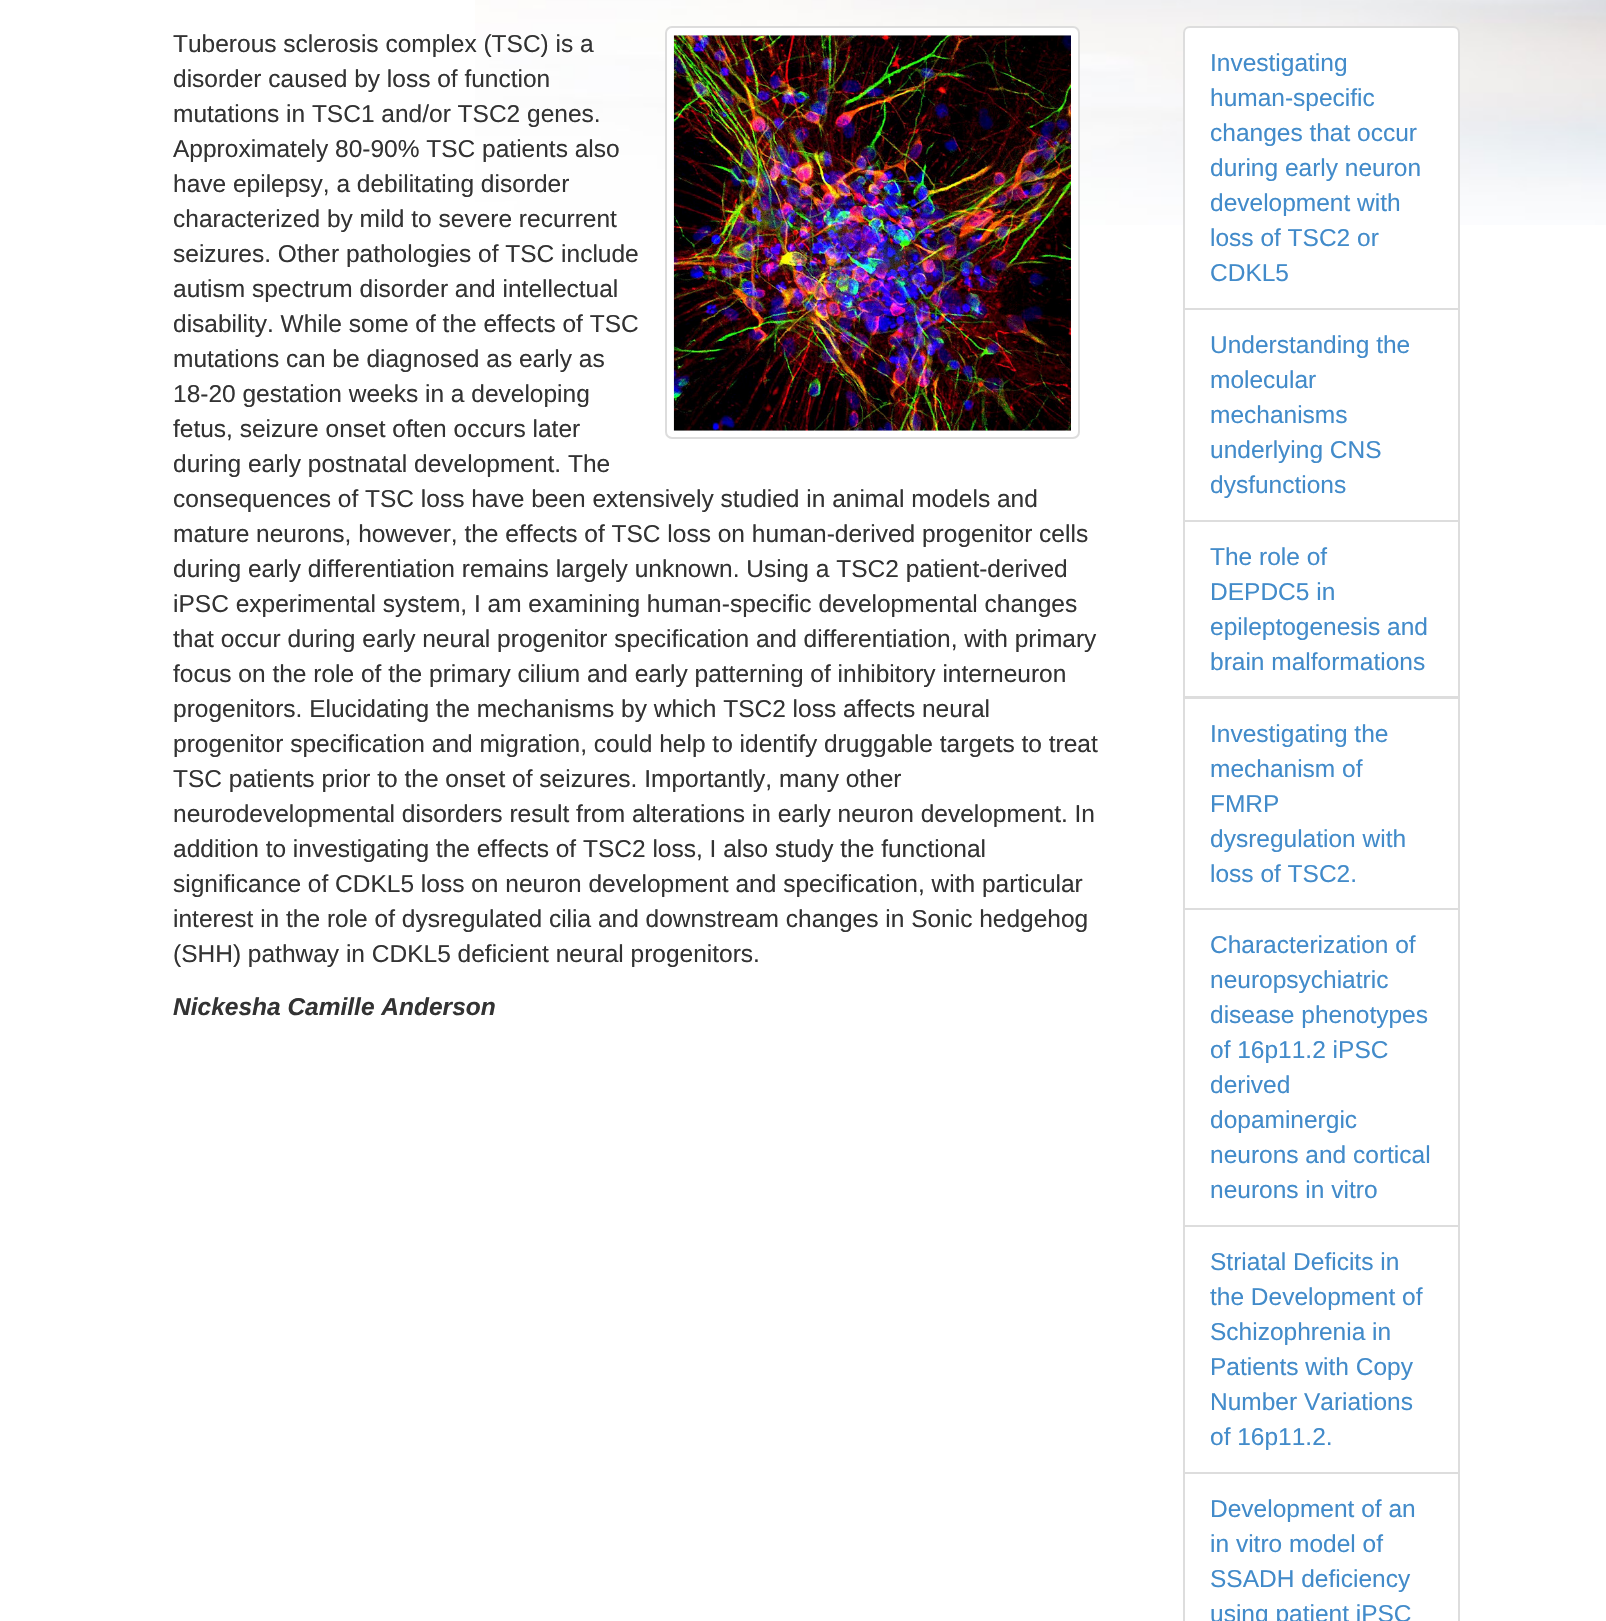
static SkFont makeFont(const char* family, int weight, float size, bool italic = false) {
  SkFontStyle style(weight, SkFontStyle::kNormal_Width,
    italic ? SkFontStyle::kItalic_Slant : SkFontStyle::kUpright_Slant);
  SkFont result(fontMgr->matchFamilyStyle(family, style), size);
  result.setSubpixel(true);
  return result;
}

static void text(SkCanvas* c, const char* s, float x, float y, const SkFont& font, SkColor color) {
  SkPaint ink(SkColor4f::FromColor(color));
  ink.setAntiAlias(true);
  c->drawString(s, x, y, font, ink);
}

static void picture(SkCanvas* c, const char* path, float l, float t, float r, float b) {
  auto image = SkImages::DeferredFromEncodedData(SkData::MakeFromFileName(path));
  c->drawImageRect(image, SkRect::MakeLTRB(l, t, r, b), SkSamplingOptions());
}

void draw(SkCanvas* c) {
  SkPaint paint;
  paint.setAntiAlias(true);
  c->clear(0xffffffff);
  picture(c, "img_01.png", 475, 0, 1606, 225);
  paint.setColor(0xffffffff);
  c->drawRoundRect(SkRect::MakeLTRB(666, 27, 1079, 438), 6, 6, paint);
  paint.setStyle(SkPaint::kStroke_Style);
  paint.setStrokeWidth(2);
  paint.setColor(0xffdddddd);
  c->drawRoundRect(SkRect::MakeLTRB(666, 27, 1079, 438), 6, 6, paint);
  picture(c, "img_02.png", 673, 35, 1071, 431);
  SkFont face1 = makeFont("Liberation Sans", 400, 24.5f);
  text(c, "Tuberous sclerosis complex (TSC) is a", 173, 52, face1, 0xff333333);
  text(c, "disorder caused by loss of function", 173, 87, face1, 0xff333333);
  text(c, "mutations in TSC1 and/or TSC2 genes.", 173, 122, face1, 0xff333333);
  text(c, "Approximately 80-90% TSC patients also", 173, 157, face1, 0xff333333);
  text(c, "have epilepsy, a debilitating disorder", 173, 192, face1, 0xff333333);
  text(c, "characterized by mild to severe recurrent", 173, 227, face1, 0xff333333);
  text(c, "seizures. Other pathologies of TSC include", 173, 262, face1, 0xff333333);
  text(c, "autism spectrum disorder and intellectual", 173, 297, face1, 0xff333333);
  text(c, "disability. While some of the effects of TSC", 173, 332, face1, 0xff333333);
  text(c, "mutations can be diagnosed as early as", 173, 367, face1, 0xff333333);
  text(c, "18-20 gestation weeks in a developing", 173, 402, face1, 0xff333333);
  text(c, "fetus, seizure onset often occurs later", 173, 437, face1, 0xff333333);
  text(c, "during early postnatal development. The", 173, 472, face1, 0xff333333);
  text(c, "consequences of TSC loss have been extensively studied in animal models and", 173, 507, face1, 0xff333333);
  text(c, "mature neurons, however, the effects of TSC loss on human-derived progenitor cells", 173, 542, face1, 0xff333333);
  text(c, "during early differentiation remains largely unknown. Using a TSC2 patient-derived", 173, 577, face1, 0xff333333);
  text(c, "iPSC experimental system, I am examining human-specific developmental changes", 173, 612, face1, 0xff333333);
  text(c, "that occur during early neural progenitor specification and differentiation, with primary", 173, 647, face1, 0xff333333);
  text(c, "focus on the role of the primary cilium and early patterning of inhibitory interneuron", 173, 682, face1, 0xff333333);
  text(c, "progenitors. Elucidating the mechanisms by which TSC2 loss affects neural", 173, 717, face1, 0xff333333);
  text(c, "progenitor specification and migration, could help to identify druggable targets to treat", 173, 752, face1, 0xff333333);
  text(c, "TSC patients prior to the onset of seizures. Importantly, many other", 173, 787, face1, 0xff333333);
  text(c, "neurodevelopmental disorders result from alterations in early neuron development. In", 173, 822, face1, 0xff333333);
  text(c, "addition to investigating the effects of TSC2 loss, I also study the functional", 173, 857, face1, 0xff333333);
  text(c, "significance of CDKL5 loss on neuron development and specification, with particular", 173, 892, face1, 0xff333333);
  text(c, "interest in the role of dysregulated cilia and downstream changes in Sonic hedgehog", 173, 927, face1, 0xff333333);
  text(c, "(SHH) pathway in CDKL5 deficient neural progenitors.", 173, 962, face1, 0xff333333);
  SkFont face2 = makeFont("Liberation Sans", 700, 24.5f, true);
  text(c, "Nickesha Camille Anderson", 173, 1015, face2, 0xff333333);
  paint.setStyle(SkPaint::kFill_Style);
  paint.setColor(0xffffffff);
  c->drawPath(SkPathBuilder().moveTo(1190, 27).lineTo(1453, 27).cubicTo(1456.5f, 27, 1459, 29.5f, 1459, 33).lineTo(1459, 309).lineTo(1184, 309).lineTo(1184, 33).cubicTo(1184, 29.5f, 1186.5f, 27, 1190, 27).close().detach(), paint);
  paint.setStyle(SkPaint::kStroke_Style);
  paint.setColor(0xffdddddd);
  c->drawPath(SkPathBuilder().moveTo(1190, 27).lineTo(1453, 27).cubicTo(1456.5f, 27, 1459, 29.5f, 1459, 33).lineTo(1459, 309).lineTo(1184, 309).lineTo(1184, 33).cubicTo(1184, 29.5f, 1186.5f, 27, 1190, 27).close().detach(), paint);
  text(c, "Investigating", 1210, 71, face1, 0xff428bca);
  text(c, "human-specific", 1210, 106, face1, 0xff428bca);
  text(c, "changes that occur", 1210, 141, face1, 0xff428bca);
  text(c, "during early neuron", 1210, 176, face1, 0xff428bca);
  text(c, "development with", 1210, 211, face1, 0xff428bca);
  text(c, "loss of TSC2 or", 1210, 246, face1, 0xff428bca);
  text(c, "CDKL5", 1210, 281, face1, 0xff428bca);
  c->drawRect(SkRect::MakeLTRB(1184, 309, 1459, 521), paint);
  text(c, "Understanding the", 1210, 353, face1, 0xff428bca);
  text(c, "molecular", 1210, 388, face1, 0xff428bca);
  text(c, "mechanisms", 1210, 423, face1, 0xff428bca);
  text(c, "underlying CNS", 1210, 458, face1, 0xff428bca);
  text(c, "dysfunctions", 1210, 493, face1, 0xff428bca);
  c->drawRect(SkRect::MakeLTRB(1184, 521, 1459, 697), paint);
  text(c, "The role of", 1210, 565, face1, 0xff428bca);
  text(c, "DEPDC5 in", 1210, 600, face1, 0xff428bca);
  text(c, "epileptogenesis and", 1210, 635, face1, 0xff428bca);
  text(c, "brain malformations", 1210, 670, face1, 0xff428bca);
  c->drawRect(SkRect::MakeLTRB(1184, 698, 1459, 909), paint);
  text(c, "Investigating the", 1210, 742, face1, 0xff428bca);
  text(c, "mechanism of", 1210, 777, face1, 0xff428bca);
  text(c, "FMRP", 1210, 812, face1, 0xff428bca);
  text(c, "dysregulation with", 1210, 847, face1, 0xff428bca);
  text(c, "loss of TSC2.", 1210, 882, face1, 0xff428bca);
  c->drawRect(SkRect::MakeLTRB(1184, 909, 1459, 1226), paint);
  text(c, "Characterization of", 1210, 953, face1, 0xff428bca);
  text(c, "neuropsychiatric", 1210, 988, face1, 0xff428bca);
  text(c, "disease phenotypes", 1210, 1023, face1, 0xff428bca);
  text(c, "of 16p11.2 iPSC", 1210, 1058, face1, 0xff428bca);
  text(c, "derived", 1210, 1093, face1, 0xff428bca);
  text(c, "dopaminergic", 1210, 1128, face1, 0xff428bca);
  text(c, "neurons and cortical", 1210, 1163, face1, 0xff428bca);
  text(c, "neurons in vitro", 1210, 1198, face1, 0xff428bca);
  c->drawRect(SkRect::MakeLTRB(1184, 1226, 1459, 1473), paint);
  text(c, "Striatal Deficits in", 1210, 1270, face1, 0xff428bca);
  text(c, "the Development of", 1210, 1305, face1, 0xff428bca);
  text(c, "Schizophrenia in", 1210, 1340, face1, 0xff428bca);
  text(c, "Patients with Copy", 1210, 1375, face1, 0xff428bca);
  text(c, "Number Variations", 1210, 1410, face1, 0xff428bca);
  text(c, "of 16p11.2.", 1210, 1445, face1, 0xff428bca);
  c->drawRect(SkRect::MakeLTRB(1184, 1473, 1459, 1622), paint);
  text(c, "Development of an", 1210, 1517, face1, 0xff428bca);
  text(c, "in vitro model of", 1210, 1552, face1, 0xff428bca);
  text(c, "SSADH deficiency", 1210, 1587, face1, 0xff428bca);
  text(c, "using patient iPSC", 1210, 1622, face1, 0xff428bca);
}
